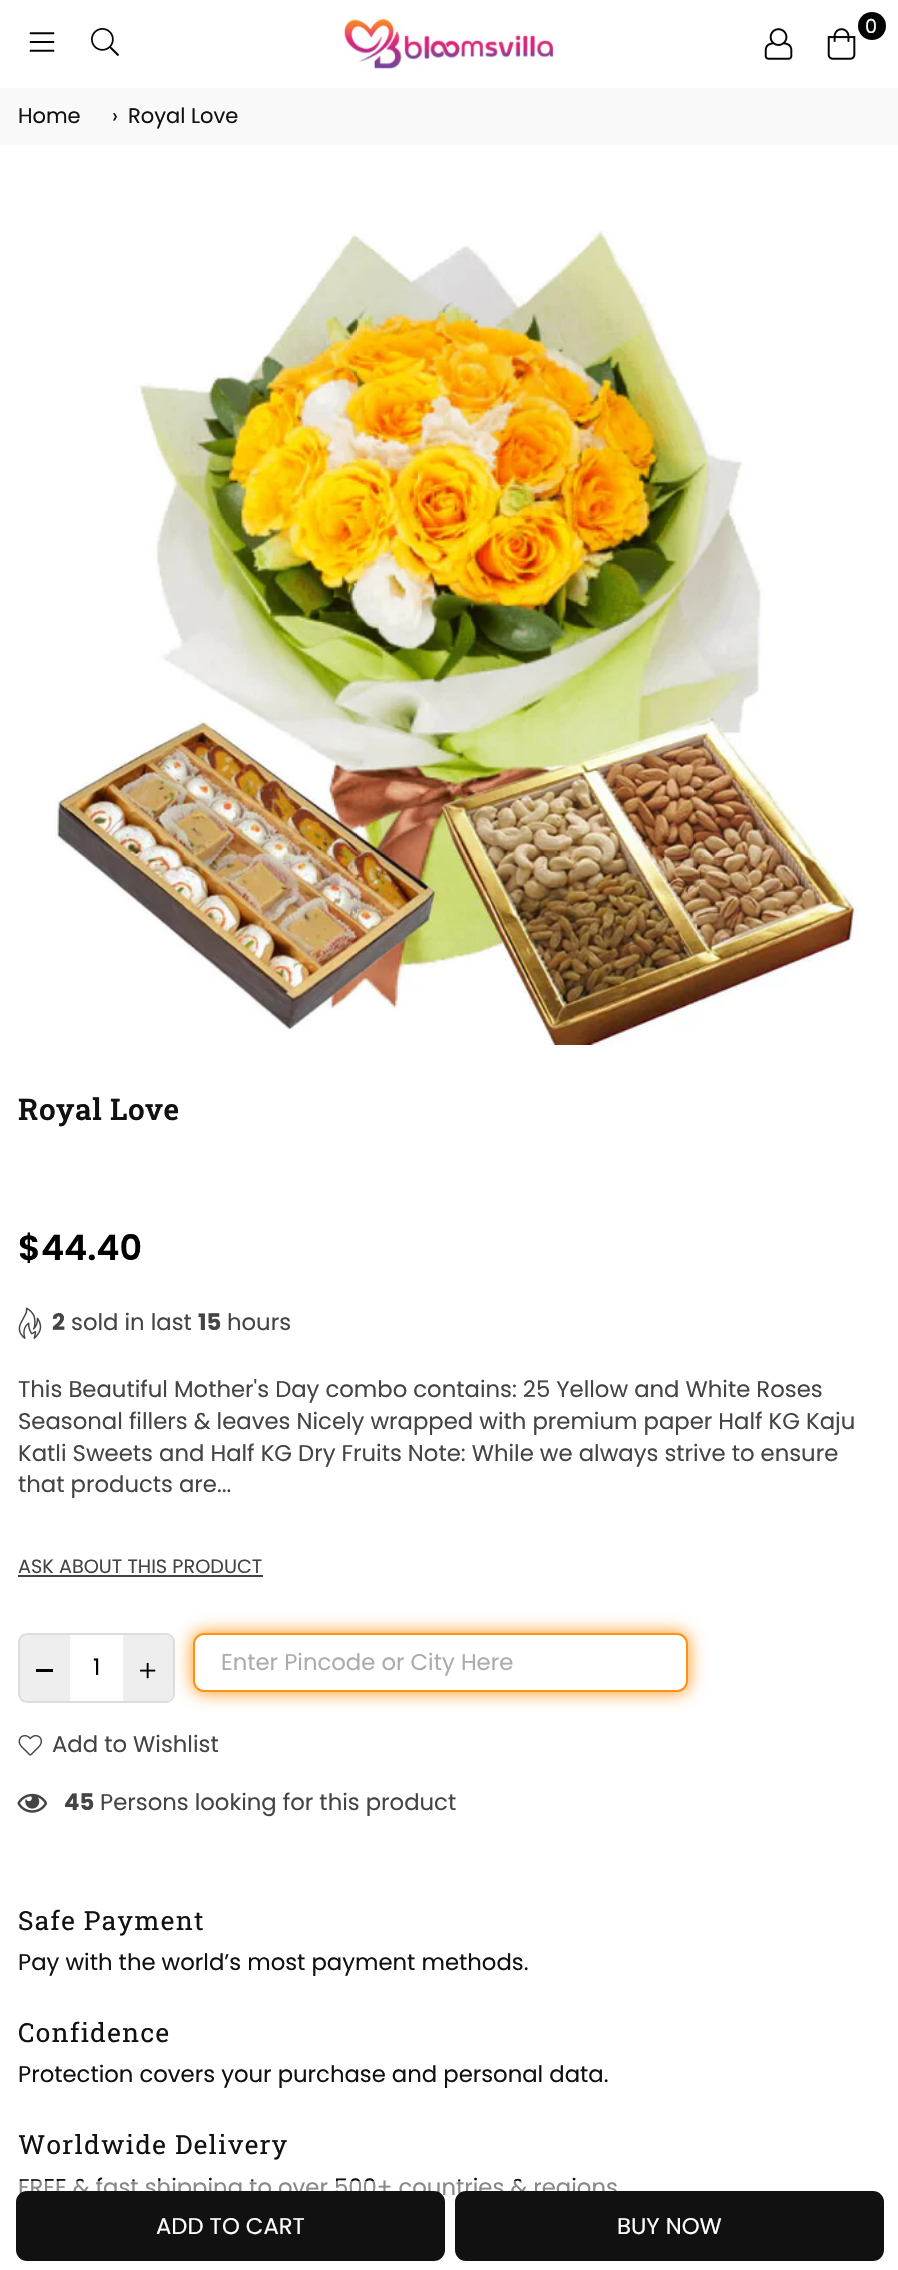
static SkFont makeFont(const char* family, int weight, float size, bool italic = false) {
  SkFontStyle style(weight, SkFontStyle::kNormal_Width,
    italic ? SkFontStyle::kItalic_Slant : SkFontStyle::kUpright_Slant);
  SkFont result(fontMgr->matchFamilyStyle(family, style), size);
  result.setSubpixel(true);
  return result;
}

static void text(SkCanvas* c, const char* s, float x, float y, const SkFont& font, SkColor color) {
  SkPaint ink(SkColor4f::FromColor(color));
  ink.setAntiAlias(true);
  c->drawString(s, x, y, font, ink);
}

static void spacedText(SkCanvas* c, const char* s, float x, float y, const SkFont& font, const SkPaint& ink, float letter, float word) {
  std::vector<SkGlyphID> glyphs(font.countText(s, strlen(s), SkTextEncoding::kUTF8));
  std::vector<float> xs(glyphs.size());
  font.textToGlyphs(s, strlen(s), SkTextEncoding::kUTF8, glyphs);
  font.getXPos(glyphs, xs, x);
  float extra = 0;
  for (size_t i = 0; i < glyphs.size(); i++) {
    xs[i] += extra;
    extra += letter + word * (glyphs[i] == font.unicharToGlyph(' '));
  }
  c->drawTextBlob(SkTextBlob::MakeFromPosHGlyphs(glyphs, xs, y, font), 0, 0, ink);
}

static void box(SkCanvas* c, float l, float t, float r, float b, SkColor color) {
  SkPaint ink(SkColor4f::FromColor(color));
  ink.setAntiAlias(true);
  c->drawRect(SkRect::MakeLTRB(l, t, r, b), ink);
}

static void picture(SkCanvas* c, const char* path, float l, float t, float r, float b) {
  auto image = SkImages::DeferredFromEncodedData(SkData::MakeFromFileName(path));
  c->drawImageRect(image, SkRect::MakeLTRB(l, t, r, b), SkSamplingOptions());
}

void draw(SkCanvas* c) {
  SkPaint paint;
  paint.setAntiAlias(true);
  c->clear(0xffffffff);
  picture(c, "img_01.png", 29, 32, 55, 52);
  picture(c, "img_02.png", 91, 28, 119, 56);
  picture(c, "img_03.png", 344, 19, 555, 69);
  paint.setColor(0xff030505);
  c->drawCircle(872, 26, 14, paint);
  SkFont face1 = makeFont("Poppins", 400, 19.25f);
  text(c, "0", 865, 33, face1, 0xffffffff);
  picture(c, "img_04.png", 827, 28, 856, 60);
  picture(c, "img_05.png", 764, 28, 793, 60);
  box(c, 0, 88, 898, 145, 0xfff9f9f9);
  SkFont face2 = makeFont("Poppins", 400, 21);
  text(c, "Home", 18, 123, face2, 0xff111111);
  text(c, "›", 112, 123, face2, 0xff111111);
  text(c, "Royal Love", 128, 123, face2, 0xff111111);
  picture(c, "img_06.png", 55, 230, 859, 1045);
  SkFont face3 = makeFont("Roboto Slab", 600, 29.75f);
  paint.setColor(0xff111111);
  spacedText(c, "Royal Love", 18, 1120, face3, paint, 0.5f, 0);
  SkFont face4 = makeFont("Poppins", 600, 35);
  text(c, "$44.40", 18, 1260, face4, 0xff000000);
  picture(c, "img_07.png", 18, 1307, 42, 1339);
  SkFont face5 = makeFont("Poppins", 700, 22.75f);
  text(c, "2", 52, 1330, face5, 0xff444444);
  SkFont face6 = makeFont("Poppins", 400, 22.75f);
  text(c, "sold in last", 71, 1330, face6, 0xff444444);
  text(c, "15", 198, 1330, face5, 0xff444444);
  text(c, "hours", 227, 1330, face6, 0xff444444);
  text(c, "This Beautiful Mother's Day combo contains: 25 Yellow and White Roses", 18, 1397, face6, 0xff444444);
  text(c, "Seasonal fillers & leaves Nicely wrapped with premium paper Half KG Kaju", 18, 1429, face6, 0xff444444);
  text(c, "Katli Sweets and Half KG Dry Fruits Note: While we always strive to ensure", 18, 1461, face6, 0xff444444);
  text(c, "that products are...", 18, 1492, face6, 0xff444444);
  text(c, "ASK ABOUT THIS PRODUCT", 18, 1573, face1, 0xff444444);
  box(c, 18, 1575, 263, 1577, 0xff444444);
  paint.setStyle(SkPaint::kStroke_Style);
  paint.setStrokeWidth(2);
  paint.setColor(0xffdddddd);
  c->drawRoundRect(SkRect::MakeLTRB(19, 1634, 174, 1702), 8, 8, paint);
  paint.setStyle(SkPaint::kFill_Style);
  paint.setColor(0x80dddddd);
  c->drawPath(SkPathBuilder().moveTo(26, 1635).lineTo(70, 1635).lineTo(70, 1701).lineTo(26, 1701).cubicTo(22, 1701, 19, 1698, 19, 1694).lineTo(19, 1642).cubicTo(19, 1638, 22, 1635, 26, 1635).close().detach(), paint);
  box(c, 36, 1669, 53, 1672, 0xff000000);
  text(c, "1", 93, 1675, face6, 0xff000000);
  c->drawPath(SkPathBuilder().moveTo(123, 1635).lineTo(166, 1635).cubicTo(170, 1635, 173, 1638, 173, 1642).lineTo(173, 1694).cubicTo(173, 1698, 170, 1701, 166, 1701).lineTo(123, 1701).close().detach(), paint);
  picture(c, "img_08.png", 140, 1662, 156, 1679);
  paint.setColor(0xffff9212);
  paint.setMaskFilter(SkMaskFilter::MakeBlur(kNormal_SkBlurStyle, 9));
  c->drawRoundRect(SkRect::MakeLTRB(193, 1633, 688, 1692), 11, 11, paint);
  paint.setMaskFilter(nullptr);
  paint.setColor(0xffffffff);
  c->drawRoundRect(SkRect::MakeLTRB(194, 1634, 687, 1691), 10, 10, paint);
  paint.setStyle(SkPaint::kStroke_Style);
  paint.setColor(0xffff9212);
  c->drawRoundRect(SkRect::MakeLTRB(194, 1634, 687, 1691), 10, 10, paint);
  text(c, "Enter Pincode or City Here", 221, 1670, face6, 0xffacacac);
  text(c, "FREE & fast shipping to over 500+ countries & regions", 18, 2195, face6, 0xff111111);
  box(c, 19, 2181, 617, 2202, 0x80fefefe);
  paint.setStyle(SkPaint::kFill_Style);
  paint.setColor(0xff111111);
  c->drawRoundRect(SkRect::MakeLTRB(17, 2192, 444, 2260), 10, 10, paint);
  paint.setStyle(SkPaint::kStroke_Style);
  c->drawRoundRect(SkRect::MakeLTRB(17, 2192, 444, 2260), 10, 10, paint);
  text(c, "ADD TO CART", 156, 2234, face6, 0xffffffff);
  paint.setStyle(SkPaint::kFill_Style);
  c->drawRoundRect(SkRect::MakeLTRB(456, 2192, 883, 2260), 10, 10, paint);
  paint.setStyle(SkPaint::kStroke_Style);
  c->drawRoundRect(SkRect::MakeLTRB(456, 2192, 883, 2260), 10, 10, paint);
  text(c, "BUY NOW", 617, 2234, face6, 0xffffffff);
  picture(c, "img_09.png", 18, 1735, 42, 1756);
  text(c, "Add to Wishlist", 52, 1752, face6, 0xff444444);
  picture(c, "img_10.png", 17, 1793, 47, 1813);
  text(c, "45", 64, 1810, face5, 0xff444444);
  text(c, "Persons looking for this product", 100, 1810, face6, 0xff444444);
  SkFont face7 = makeFont("Roboto Slab", 400, 26.25f);
  paint.setStyle(SkPaint::kFill_Style);
  spacedText(c, "Safe Payment", 18, 1930, face7, paint, 1.3f, 0);
  text(c, "Pay with the world’s most payment methods.", 18, 1970, face6, 0xff111111);
  spacedText(c, "Confidence", 18, 2042, face7, paint, 1.3f, 0);
  text(c, "Protection covers your purchase and personal data.", 18, 2082, face6, 0xff111111);
  spacedText(c, "Worldwide Delivery", 18, 2154, face7, paint, 1.3f, 0);
}
